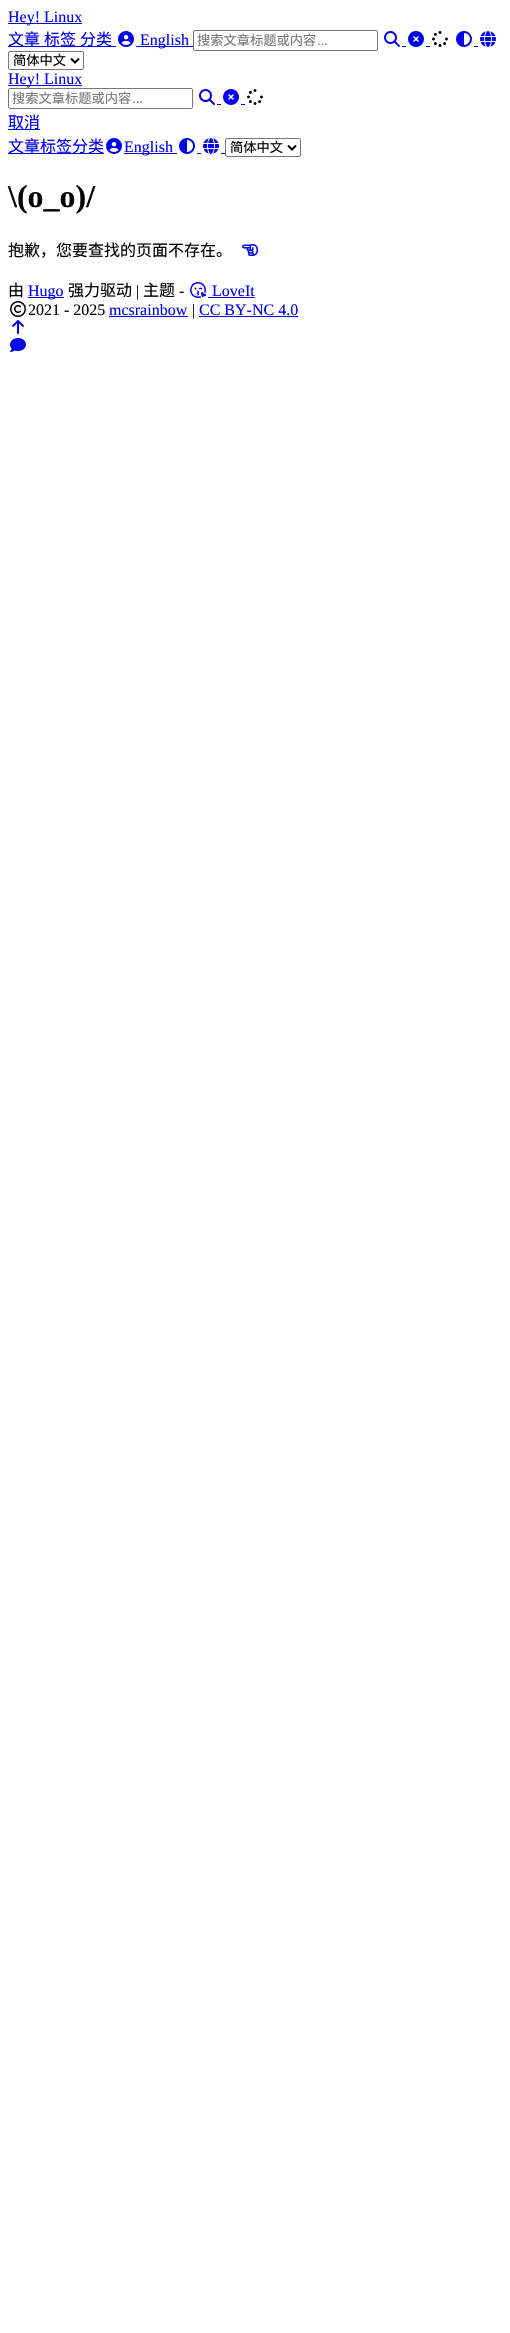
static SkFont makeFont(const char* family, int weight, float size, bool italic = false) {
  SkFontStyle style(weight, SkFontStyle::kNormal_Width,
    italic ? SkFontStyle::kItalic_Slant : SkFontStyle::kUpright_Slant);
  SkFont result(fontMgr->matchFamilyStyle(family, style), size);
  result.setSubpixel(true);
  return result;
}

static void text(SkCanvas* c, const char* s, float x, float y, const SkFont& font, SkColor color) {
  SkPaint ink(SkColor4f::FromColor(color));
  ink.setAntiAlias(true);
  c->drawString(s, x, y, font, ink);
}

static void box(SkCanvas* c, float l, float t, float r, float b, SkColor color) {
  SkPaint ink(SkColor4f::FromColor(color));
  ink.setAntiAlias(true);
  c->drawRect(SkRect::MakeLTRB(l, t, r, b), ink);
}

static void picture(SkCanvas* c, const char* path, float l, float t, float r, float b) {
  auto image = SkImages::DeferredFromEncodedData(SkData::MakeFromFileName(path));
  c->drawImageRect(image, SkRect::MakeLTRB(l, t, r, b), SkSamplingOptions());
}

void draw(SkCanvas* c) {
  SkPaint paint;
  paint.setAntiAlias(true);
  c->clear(0xffffffff);
  box(c, 8, 23, 82, 24, 0xff0000ee);
  SkFont face1 = makeFont("Liberation Serif", 400, 16);
  text(c, "Hey! Linux", 8, 22, face1, 0xff0000ee);
  box(c, 8, 46, 116, 47, 0xff0000ee);
  SkFont face2 = makeFont("Noto Sans CJK SC", 400, 16);
  text(c, "文章", 8, 45, face2, 0xff0000ee);
  text(c, "标签", 44, 45, face2, 0xff0000ee);
  text(c, "分类", 80, 45, face2, 0xff0000ee);
  picture(c, "img_01.png", 118, 31, 134, 47);
  box(c, 136, 46, 193, 47, 0xff0000ee);
  picture(c, "img_02.png", 456, 31, 472, 47);
  box(c, 474, 46, 478, 47, 0xff0000ee);
  text(c, "English", 140, 45, face1, 0xff0000ee);
  paint.setStyle(SkPaint::kStroke_Style);
  paint.setStrokeWidth(1);
  paint.setColor(0xff767676);
  c->drawRoundRect(SkRect::MakeLTRB(193.5f, 30.5f, 377.5f, 50.5f), 1.5f, 1.5f, paint);
  SkFont face3 = makeFont("Noto Sans CJK SC", 400, 13.25f);
  text(c, "搜索文章标题或内容", 197, 45, face3, 0xff757575);
  SkFont face4 = makeFont("Liberation Sans", 400, 13.25f);
  text(c, "...", 317, 45, face4, 0xff757575);
  picture(c, "img_03.png", 384, 31, 400, 47);
  box(c, 402, 46, 406, 47, 0xff0000ee);
  picture(c, "img_04.png", 408, 31, 424, 47);
  box(c, 426, 46, 430, 47, 0xff0000ee);
  picture(c, "img_05.png", 432, 31, 448, 47);
  picture(c, "img_06.png", 480, 31, 496, 47);
  c->drawRoundRect(SkRect::MakeLTRB(8.5f, 51.5f, 83.5f, 69.5f), 1.5f, 1.5f, paint);
  paint.setStrokeWidth(2);
  paint.setColor(0xff000000);
  c->drawPath(SkPathBuilder().moveTo(71, 58.5f).lineTo(75, 62.5f).lineTo(79, 58.5f).detach(), paint);
  text(c, "简体中文", 13, 65, face3, 0xff000000);
  box(c, 8, 85, 82, 86, 0xff0000ee);
  text(c, "Hey! Linux", 8, 84, face1, 0xff0000ee);
  paint.setStrokeWidth(1);
  paint.setColor(0xff767676);
  c->drawRoundRect(SkRect::MakeLTRB(8.5f, 88.5f, 192.5f, 108.5f), 1.5f, 1.5f, paint);
  text(c, "搜索文章标题或内容", 12, 103, face3, 0xff757575);
  text(c, "...", 132, 103, face4, 0xff757575);
  picture(c, "img_03.png", 199, 89, 215, 105);
  box(c, 217, 104, 221, 105, 0xff0000ee);
  picture(c, "img_04.png", 223, 89, 239, 105);
  box(c, 241, 104, 245, 105, 0xff0000ee);
  picture(c, "img_05.png", 247, 89, 263, 105);
  box(c, 8, 129, 40, 130, 0xff0000ee);
  text(c, "取消", 8, 128, face2, 0xff0000ee);
  box(c, 8, 153, 104, 154, 0xff0000ee);
  text(c, "文章标签分类", 8, 152, face2, 0xff0000ee);
  picture(c, "img_01.png", 106, 138, 122, 154);
  box(c, 124, 153, 177, 154, 0xff0000ee);
  text(c, "English", 124, 152, face1, 0xff0000ee);
  picture(c, "img_02.png", 179, 138, 195, 154);
  box(c, 197, 153, 201, 154, 0xff0000ee);
  picture(c, "img_06.png", 203, 138, 219, 154);
  box(c, 221, 153, 225, 154, 0xff0000ee);
  c->drawRoundRect(SkRect::MakeLTRB(225.5f, 138.5f, 300.5f, 156.5f), 1.5f, 1.5f, paint);
  paint.setStrokeWidth(2);
  paint.setColor(0xff000000);
  c->drawPath(SkPathBuilder().moveTo(288, 145.5f).lineTo(292, 149.5f).lineTo(296, 145.5f).detach(), paint);
  text(c, "简体中文", 230, 152, face3, 0xff000000);
  SkFont face5 = makeFont("Liberation Serif", 700, 32);
  text(c, "\\(o_o)/", 8, 207, face5, 0xff000000);
  text(c, "抱歉，您要查找的页面不存在。", 8, 256, face2, 0xff000000);
  picture(c, "img_07.png", 242, 244, 258, 256);
  text(c, "由", 8, 296, face2, 0xff000000);
  box(c, 28, 297, 64, 298, 0xff0000ee);
  text(c, "Hugo", 28, 296, face1, 0xff0000ee);
  text(c, "强力驱动", 68, 296, face2, 0xff000000);
  text(c, "|", 136, 296, face1, 0xff000000);
  text(c, "主题", 143, 296, face2, 0xff000000);
  text(c, "-", 179, 296, face1, 0xff000000);
  picture(c, "img_08.png", 190, 282, 206, 298);
  text(c, "LoveIt", 212, 296, face1, 0xff0000ee);
  box(c, 208, 297, 255, 298, 0xff0000ee);
  picture(c, "img_09.png", 10, 301, 26, 317);
  text(c, "2021 - 2025", 28, 315, face1, 0xff000000);
  text(c, "mcsrainbow", 109, 315, face1, 0xff0000ee);
  box(c, 109, 316, 188, 317, 0xff0000ee);
  text(c, "|", 192, 315, face1, 0xff000000);
  text(c, "CC BY-NC 4.0", 199, 315, face1, 0xff0000ee);
  box(c, 199, 316, 298, 317, 0xff0000ee);
  picture(c, "img_10.png", 12, 320, 24, 334);
  picture(c, "img_11.png", 10, 338, 26, 352);
}
